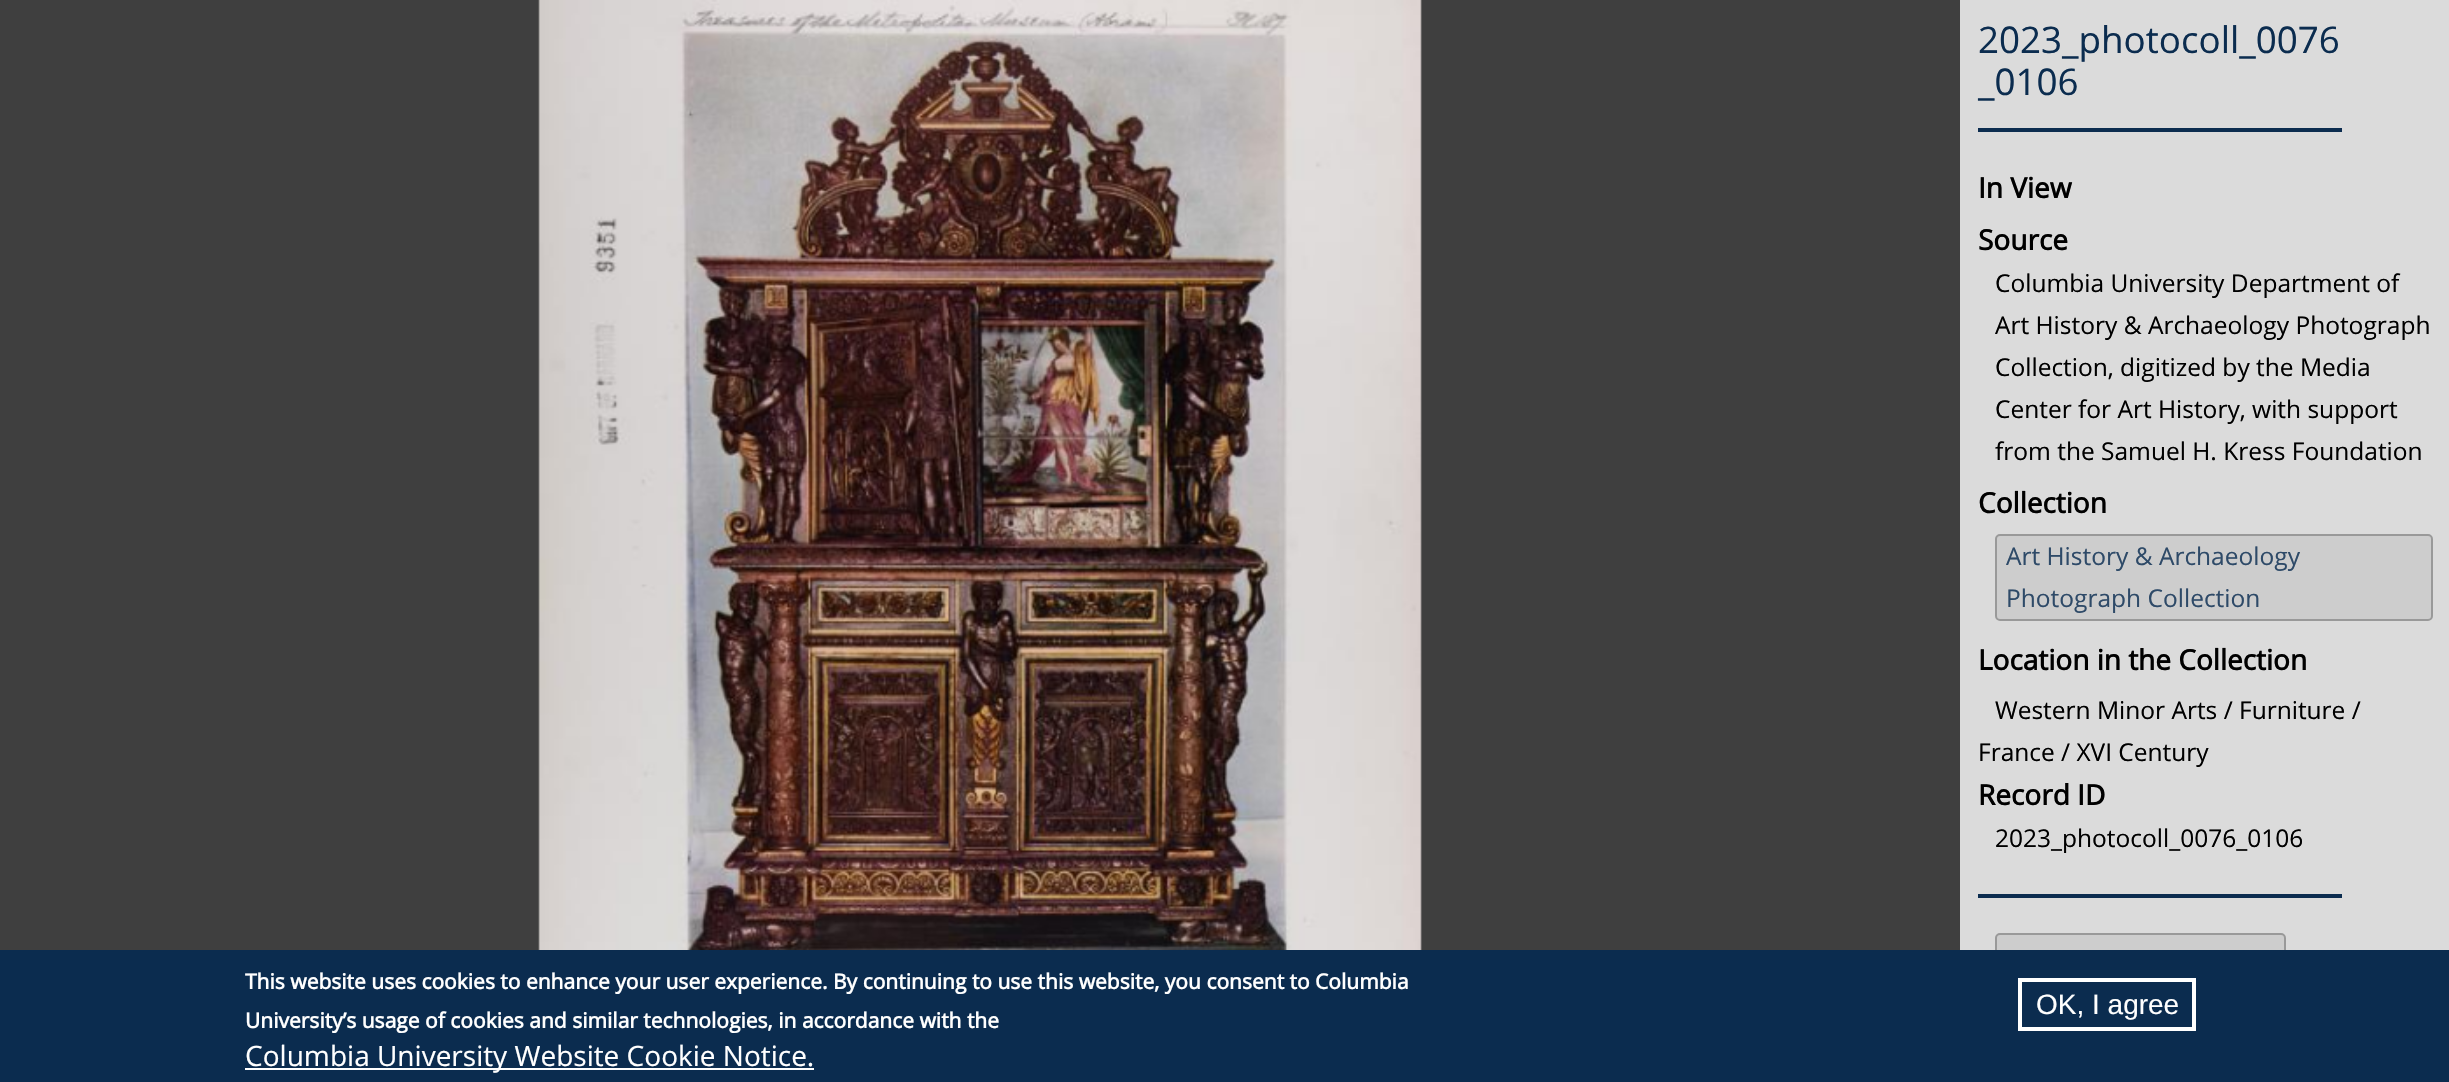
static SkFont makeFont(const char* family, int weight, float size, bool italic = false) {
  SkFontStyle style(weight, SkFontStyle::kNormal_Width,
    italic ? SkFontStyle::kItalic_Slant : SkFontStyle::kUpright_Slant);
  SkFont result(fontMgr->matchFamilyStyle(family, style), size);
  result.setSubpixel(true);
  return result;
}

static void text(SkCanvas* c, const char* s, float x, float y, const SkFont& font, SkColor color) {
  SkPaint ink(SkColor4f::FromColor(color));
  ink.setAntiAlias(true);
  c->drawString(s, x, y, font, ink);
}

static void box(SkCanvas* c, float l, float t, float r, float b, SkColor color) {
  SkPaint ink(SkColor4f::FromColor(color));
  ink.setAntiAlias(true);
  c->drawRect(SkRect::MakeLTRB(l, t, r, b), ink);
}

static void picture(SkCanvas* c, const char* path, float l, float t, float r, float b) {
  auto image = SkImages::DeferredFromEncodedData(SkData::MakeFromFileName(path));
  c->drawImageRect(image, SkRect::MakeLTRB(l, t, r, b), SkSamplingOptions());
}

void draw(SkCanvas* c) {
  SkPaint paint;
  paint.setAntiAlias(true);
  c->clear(0xffdbdbdb);
  box(c, 0, 0, 1960, 950, 0xff3f3f3f);
  picture(c, "img_01.png", 538, 0, 1422, 950);
  box(c, 1978, 128, 2342, 132, 0xff0b2c4f);
  SkFont face1 = makeFont("Open Sans", 400, 36.75f);
  text(c, "2023_photocoll_0076", 1978, 53, face1, 0xff0b2c4f);
  text(c, "_0106", 1978, 95, face1, 0xff0b2c4f);
  SkFont face2 = makeFont("Open Sans", 700, 28);
  text(c, "In View", 1978, 198, face2, 0xff000000);
  text(c, "Source", 1978, 250, face2, 0xff000000);
  SkFont face3 = makeFont("Open Sans", 400, 24.5f);
  text(c, "Columbia University Department of", 1995, 292, face3, 0xff000000);
  text(c, "Art History & Archaeology Photograph", 1995, 334, face3, 0xff000000);
  text(c, "Collection, digitized by the Media", 1995, 376, face3, 0xff000000);
  text(c, "Center for Art History, with support", 1995, 418, face3, 0xff000000);
  text(c, "from the Samuel H. Kress Foundation", 1995, 460, face3, 0xff000000);
  text(c, "Collection", 1978, 513, face2, 0xff000000);
  paint.setColor(0xffcdcdcd);
  c->drawRoundRect(SkRect::MakeLTRB(1996, 535, 2432, 620), 4, 4, paint);
  paint.setStyle(SkPaint::kStroke_Style);
  paint.setStrokeWidth(2);
  paint.setColor(0xff999999);
  c->drawRoundRect(SkRect::MakeLTRB(1996, 535, 2432, 620), 4, 4, paint);
  text(c, "Art History & Archaeology", 2006, 565, face3, 0xff2e4a68);
  text(c, "Photograph Collection", 2006, 607, face3, 0xff2e4a68);
  text(c, "Location in the Collection", 1978, 670, face2, 0xff000000);
  text(c, "Western Minor Arts / Furniture /", 1995, 719, face3, 0xff000000);
  text(c, "France / XVI Century", 1978, 761, face3, 0xff000000);
  text(c, "Record ID", 1978, 805, face2, 0xff000000);
  text(c, "2023_photocoll_0076_0106", 1995, 847, face3, 0xff000000);
  box(c, 1978, 894, 2342, 898, 0xff0b2c4f);
  paint.setStyle(SkPaint::kFill_Style);
  paint.setColor(0xffcdcdcd);
  c->drawRoundRect(SkRect::MakeLTRB(1996, 934, 2285, 977), 4, 4, paint);
  paint.setStyle(SkPaint::kStroke_Style);
  paint.setColor(0xff999999);
  c->drawRoundRect(SkRect::MakeLTRB(1996, 934, 2285, 977), 4, 4, paint);
  box(c, 0, 950, 2449, 1082, 0xff0b2c4f);
  SkFont face4 = makeFont("Open Sans", 700, 21);
  text(c, "This website uses cookies to enhance your user experience. By continuing to use this website, you consent to Columbia", 245, 989, face4, 0xffffffff);
  text(c, "University’s usage of cookies and similar technologies, in accordance with the", 245, 1028, face4, 0xffffffff);
  box(c, 245, 1068, 814, 1070, 0xffffffff);
  SkFont face5 = makeFont("Open Sans", 400, 28);
  text(c, "Columbia University Website Cookie Notice.", 245, 1066, face5, 0xffffffff);
  paint.setStrokeWidth(4);
  paint.setColor(0xffffffff);
  c->drawRect(SkRect::MakeLTRB(2020, 980, 2194, 1029), paint);
  SkFont face6 = makeFont("Liberation Sans", 400, 28);
  text(c, "OK, I agree", 2036, 1014, face6, 0xffffffff);
}
